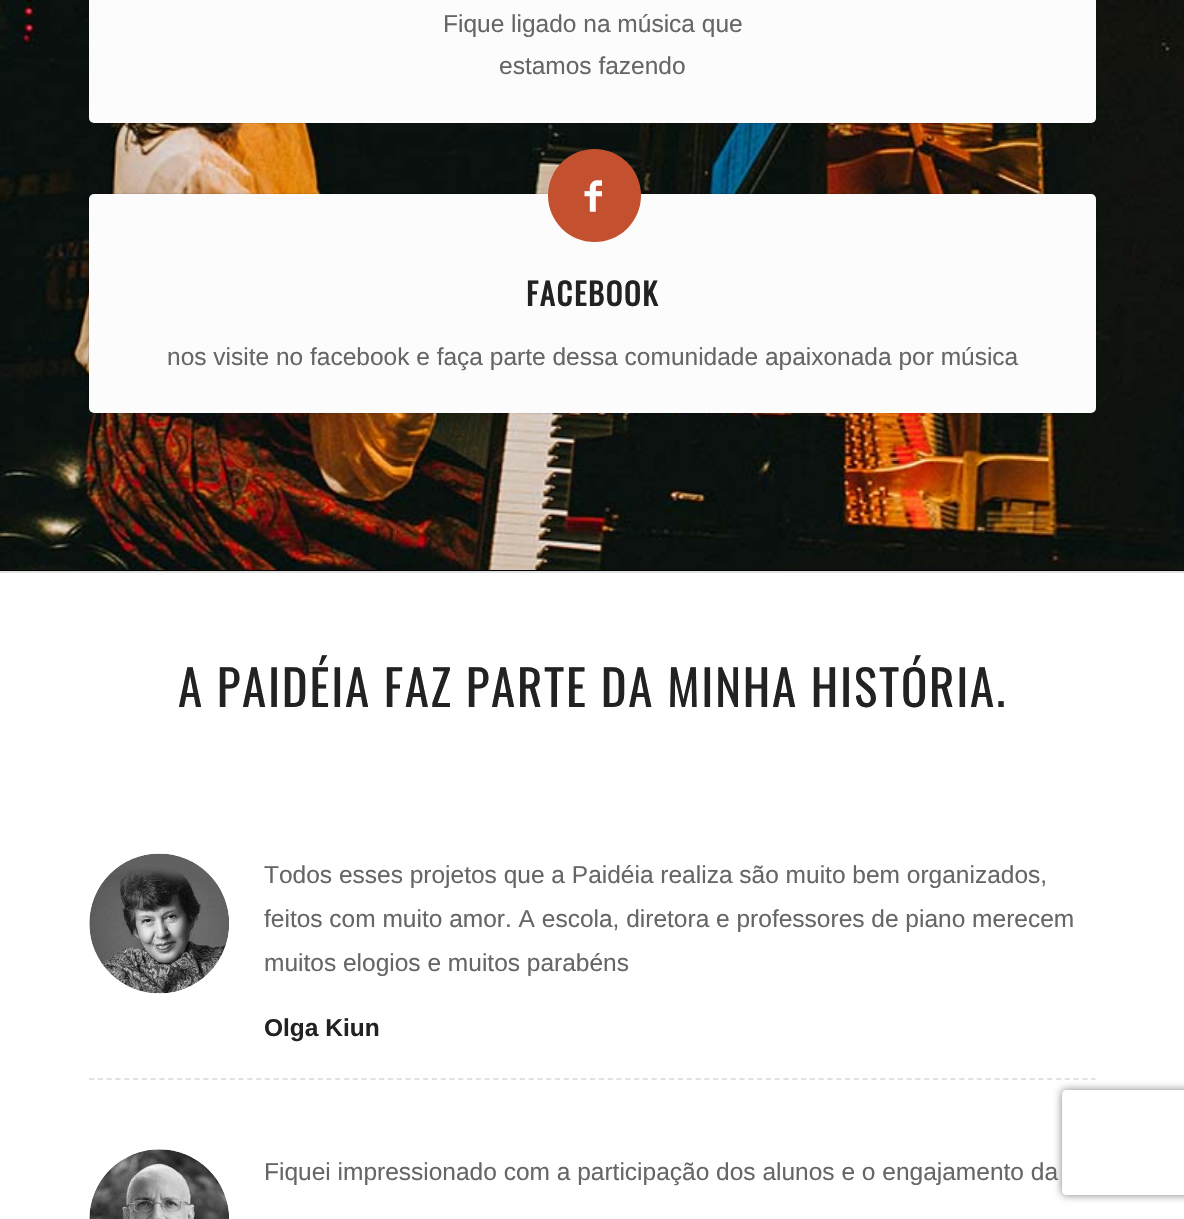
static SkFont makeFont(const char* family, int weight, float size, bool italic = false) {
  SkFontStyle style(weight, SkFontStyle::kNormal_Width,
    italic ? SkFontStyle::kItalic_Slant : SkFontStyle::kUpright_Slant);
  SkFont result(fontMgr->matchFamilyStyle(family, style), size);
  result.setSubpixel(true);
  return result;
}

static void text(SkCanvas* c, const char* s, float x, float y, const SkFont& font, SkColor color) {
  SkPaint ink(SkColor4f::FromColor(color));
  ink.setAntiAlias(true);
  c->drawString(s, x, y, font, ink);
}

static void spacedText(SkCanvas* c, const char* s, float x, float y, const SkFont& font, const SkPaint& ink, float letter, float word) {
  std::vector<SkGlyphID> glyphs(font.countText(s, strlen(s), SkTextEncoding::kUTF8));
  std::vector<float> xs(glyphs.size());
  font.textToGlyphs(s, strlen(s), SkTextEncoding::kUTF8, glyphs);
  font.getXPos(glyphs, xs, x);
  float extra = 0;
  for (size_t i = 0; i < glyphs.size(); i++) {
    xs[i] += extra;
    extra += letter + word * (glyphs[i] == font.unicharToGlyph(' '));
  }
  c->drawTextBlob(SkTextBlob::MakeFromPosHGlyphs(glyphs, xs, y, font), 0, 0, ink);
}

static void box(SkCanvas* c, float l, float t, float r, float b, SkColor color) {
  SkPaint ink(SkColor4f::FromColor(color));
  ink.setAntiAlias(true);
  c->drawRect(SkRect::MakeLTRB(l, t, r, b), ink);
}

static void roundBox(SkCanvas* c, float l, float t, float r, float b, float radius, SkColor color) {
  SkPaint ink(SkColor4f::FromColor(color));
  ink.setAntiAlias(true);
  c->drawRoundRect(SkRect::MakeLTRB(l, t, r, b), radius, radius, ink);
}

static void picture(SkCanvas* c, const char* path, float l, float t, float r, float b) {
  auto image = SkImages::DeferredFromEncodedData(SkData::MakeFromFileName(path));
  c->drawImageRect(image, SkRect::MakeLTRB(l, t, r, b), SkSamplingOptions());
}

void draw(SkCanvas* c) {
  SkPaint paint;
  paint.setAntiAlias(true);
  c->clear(0xff000000);
  picture(c, "img_01.png", 0, 0, 1184, 570);
  paint.setColor(0x4d000000);
  paint.setMaskFilter(SkMaskFilter::MakeBlur(kNormal_SkBlurStyle, 1));
  c->drawRoundRect(SkRect::MakeLTRB(89, -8, 1096, 123), 5, 5, paint);
  paint.setMaskFilter(nullptr);
  roundBox(c, 89, -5, 1096, 123, 5, 0xfffcfcfc);
  SkFont face1 = makeFont("Liberation Sans", 400, 24.5f);
  text(c, "Fique ligado na música que", 443, 32, face1, 0xff666666);
  text(c, "estamos fazendo", 499, 74, face1, 0xff666666);
  paint.setMaskFilter(SkMaskFilter::MakeBlur(kNormal_SkBlurStyle, 1));
  c->drawRoundRect(SkRect::MakeLTRB(89, 194, 1096, 413), 5, 5, paint);
  paint.setMaskFilter(nullptr);
  roundBox(c, 89, 194, 1096, 413, 5, 0xfffcfcfc);
  paint.setColor(0xffc3512f);
  c->drawCircle(594.5f, 195.5f, 46.5f, paint);
  picture(c, "img_02.png", 584, 180, 602, 212);
  SkFont face2 = makeFont("Oswald", 700, 30.5f);
  paint.setColor(0xff222222);
  spacedText(c, "FACEBOOK", 526, 306, face2, paint, 1.75f, 0);
  text(c, "nos visite no facebook e faça parte dessa comunidade apaixonada por música", 167, 365, face1, 0xff666666);
  box(c, 0, 573, 1184, 1219, 0xffffffff);
  box(c, 0, 571, 1184, 573, 0xffe1e1e1);
  SkFont face3 = makeFont("Oswald", 400, 49);
  spacedText(c, "A PAIDÉIA FAZ PARTE DA MINHA HISTÓRIA.", 178, 707, face3, paint, 1.75f, 0);
  paint.setStyle(SkPaint::kStroke_Style);
  paint.setStrokeWidth(1.8f);
  paint.setColor(0xffe1e1e1);
  paint.setPathEffect(SkDashPathEffect::Make({{5.25f, 3.54f}}, 0));
  c->drawPath(SkPathBuilder().moveTo(89, 1079).lineTo(1095.5f, 1079).detach(), paint);
  paint.setPathEffect(nullptr);
  picture(c, "img_03.png", 89, 853, 229, 994);
  text(c, "Todos esses projetos que a Paidéia realiza são muito bem organizados,", 264, 883, face1, 0xff666666);
  text(c, "feitos com muito amor. A escola, diretora e professores de piano merecem", 264, 927, face1, 0xff666666);
  text(c, "muitos elogios e muitos parabéns", 264, 971, face1, 0xff666666);
  SkFont face4 = makeFont("Liberation Sans", 700, 24.5f);
  text(c, "Olga Kiun", 264, 1036, face4, 0xff222222);
  picture(c, "img_04.png", 89, 1149, 229, 1219);
  text(c, "Fiquei impressionado com a participação dos alunos e o engajamento da", 264, 1180, face1, 0xff666666);
  c->save();
  c->clipPath(SkPathBuilder(SkPathFillType::kEvenOdd).moveTo(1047, 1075).lineTo(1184, 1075).lineTo(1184, 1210).lineTo(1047, 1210).close().moveTo(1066, 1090).lineTo(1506, 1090).cubicTo(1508, 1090, 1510, 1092, 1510, 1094).lineTo(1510, 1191).cubicTo(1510, 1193, 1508, 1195, 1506, 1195).lineTo(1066, 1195).cubicTo(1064, 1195, 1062, 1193, 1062, 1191).lineTo(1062, 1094).cubicTo(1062, 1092, 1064, 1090, 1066, 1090).close().detach(), true);
  paint.setStyle(SkPaint::kFill_Style);
  paint.setColor(0xff808080);
  paint.setMaskFilter(SkMaskFilter::MakeBlur(kNormal_SkBlurStyle, 4.5f));
  c->drawRoundRect(SkRect::MakeLTRB(1062, 1090, 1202, 1195), 4, 4, paint);
  paint.setMaskFilter(nullptr);
  c->restore();
}
